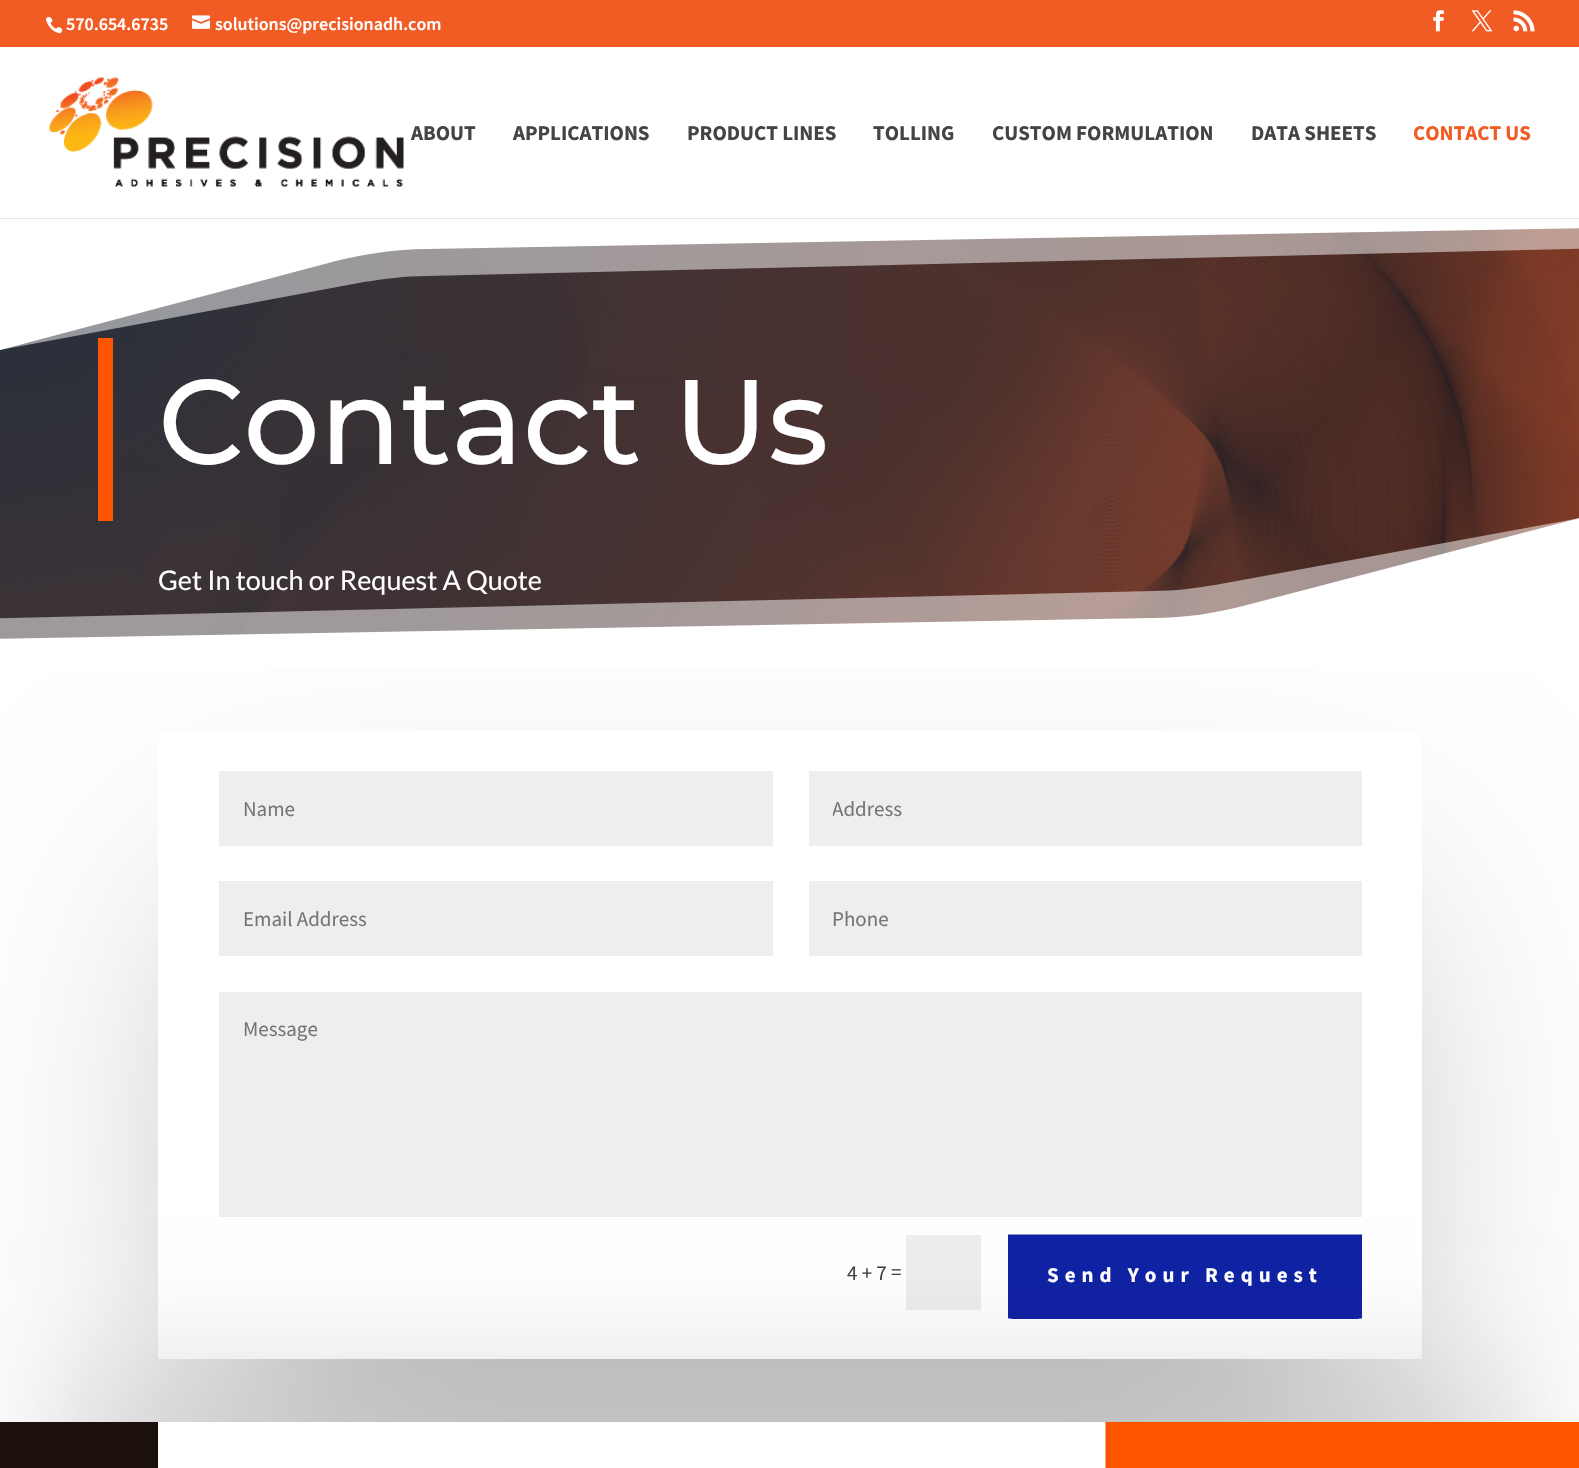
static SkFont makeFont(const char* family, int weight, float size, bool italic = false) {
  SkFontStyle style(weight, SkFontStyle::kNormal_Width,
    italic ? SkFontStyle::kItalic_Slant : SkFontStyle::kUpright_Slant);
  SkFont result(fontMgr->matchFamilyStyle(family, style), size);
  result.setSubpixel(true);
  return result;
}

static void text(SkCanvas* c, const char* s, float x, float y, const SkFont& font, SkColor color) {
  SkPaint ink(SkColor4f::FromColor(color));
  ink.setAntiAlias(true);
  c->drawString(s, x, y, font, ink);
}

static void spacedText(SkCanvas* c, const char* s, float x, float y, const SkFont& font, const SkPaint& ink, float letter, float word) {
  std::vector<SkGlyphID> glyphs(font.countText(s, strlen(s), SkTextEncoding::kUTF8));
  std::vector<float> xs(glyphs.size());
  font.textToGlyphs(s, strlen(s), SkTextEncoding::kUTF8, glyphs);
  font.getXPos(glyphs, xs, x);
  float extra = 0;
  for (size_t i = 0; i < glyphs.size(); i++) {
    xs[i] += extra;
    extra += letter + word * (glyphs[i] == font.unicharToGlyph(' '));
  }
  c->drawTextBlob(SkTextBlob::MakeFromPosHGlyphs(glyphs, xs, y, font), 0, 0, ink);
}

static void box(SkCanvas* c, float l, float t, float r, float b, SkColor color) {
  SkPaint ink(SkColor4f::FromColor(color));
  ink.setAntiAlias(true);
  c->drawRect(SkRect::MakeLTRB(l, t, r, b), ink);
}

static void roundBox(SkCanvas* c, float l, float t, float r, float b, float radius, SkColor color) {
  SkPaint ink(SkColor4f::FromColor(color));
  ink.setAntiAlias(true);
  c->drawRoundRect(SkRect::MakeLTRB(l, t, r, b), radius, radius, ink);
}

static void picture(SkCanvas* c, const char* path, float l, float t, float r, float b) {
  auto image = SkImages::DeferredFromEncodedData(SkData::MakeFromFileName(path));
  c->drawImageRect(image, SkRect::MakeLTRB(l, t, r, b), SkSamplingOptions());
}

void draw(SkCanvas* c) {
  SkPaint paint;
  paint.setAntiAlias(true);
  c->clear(0xffffffff);
  box(c, 0, 0, 1579, 47, 0xfff15b24);
  picture(c, "img_01.png", 45, 16, 63, 34);
  SkFont face1 = makeFont("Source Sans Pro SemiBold", 600, 18);
  text(c, "570.654.6735", 66, 30, face1, 0xffffffff);
  picture(c, "img_02.png", 192, 15, 210, 29);
  text(c, "solutions@precisionadh.com", 215, 30, face1, 0xffffffff);
  picture(c, "img_03.png", 1433, 10, 1444, 32);
  picture(c, "img_04.png", 1471, 10, 1493, 32);
  picture(c, "img_05.png", 1513, 10, 1535, 32);
  picture(c, "img_07.png", 0, 228, 1579, 639);
  paint.setColor(0x80ffffff);
  c->drawPath(SkPathBuilder().moveTo(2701, 222).lineTo(426, 276).cubicTo(405, 276, 384, 279, 364, 282).lineTo(0, 350).lineTo(0, 200).lineTo(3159, 200).lineTo(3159, 350).lineTo(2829, 240).cubicTo(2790, 227, 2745, 221, 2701, 222).close().detach(), paint);
  paint.setColor(0xffffffff);
  c->drawPath(SkPathBuilder().moveTo(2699, 208).lineTo(427, 249).cubicTo(395, 249, 364, 254, 336, 261).lineTo(0, 350).lineTo(0, 200).lineTo(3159, 200).lineTo(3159, 350).lineTo(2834, 230).cubicTo(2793, 215, 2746, 207, 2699, 208).close().detach(), paint);
  paint.setColor(0xffe6e6e6);
  c->drawPath(SkPathBuilder().moveTo(0, 218).lineTo(0, 219).lineTo(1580, 219).lineTo(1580, 48).lineTo(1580, 218).close().detach(), paint);
  picture(c, "img_06.png", 49, 77, 404, 187);
  SkFont face2 = makeFont("Source Sans Pro", 700, 21);
  text(c, "ABOUT", 411, 140, face2, 0xff444444);
  text(c, "APPLICATIONS", 513, 140, face2, 0xff444444);
  text(c, "PRODUCT LINES", 687, 140, face2, 0xff444444);
  text(c, "TOLLING", 873, 140, face2, 0xff444444);
  text(c, "CUSTOM FORMULATION", 992, 140, face2, 0xff444444);
  text(c, "DATA SHEETS", 1251, 140, face2, 0xff444444);
  text(c, "CONTACT US", 1413, 140, face2, 0xfff15b24);
  c->save();
  c->clipPath(SkPathBuilder(SkPathFillType::kEvenOdd).moveTo(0, 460).lineTo(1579, 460).lineTo(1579, 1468).lineTo(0, 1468).close().moveTo(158, 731).lineTo(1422, 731).lineTo(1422, 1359).lineTo(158, 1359).close().detach(), true);
  paint.setColor(0x4d000000);
  paint.setMaskFilter(SkMaskFilter::MakeBlur(kNormal_SkBlurStyle, 150));
  c->drawRect(SkRect::MakeLTRB(218, 911, 1362, 1419), paint);
  paint.setMaskFilter(nullptr);
  c->restore();
  paint.setColor(0x80ffffff);
  c->drawPath(SkPathBuilder().moveTo(-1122, 645).lineTo(1153, 591).cubicTo(1175, 591, 1196, 588, 1215, 585).lineTo(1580, 518).lineTo(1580, 668).lineTo(-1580, 668).lineTo(-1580, 518).lineTo(-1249, 627).cubicTo(-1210, 640, -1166, 646, -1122, 645).close().detach(), paint);
  paint.setColor(0xffffffff);
  c->drawPath(SkPathBuilder().moveTo(-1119, 659).lineTo(1153, 618).cubicTo(1185, 618, 1216, 613, 1243, 606).lineTo(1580, 518).lineTo(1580, 668).lineTo(-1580, 668).lineTo(-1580, 518).lineTo(-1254, 637).cubicTo(-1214, 652, -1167, 660, -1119, 659).close().detach(), paint);
  box(c, 98, 338, 113, 521, 0xffff5400);
  SkFont face3 = makeFont("Montserrat", 500, 120);
  text(c, "Contact Us", 158, 464, face3, 0xffffffff);
  SkFont face4 = makeFont("Lato", 400, 27);
  text(c, "Get In touch or Request A Quote", 158, 590, face4, 0xffffffff);
  box(c, 219, 771, 773, 846, 0xffeeeeee);
  SkFont face5 = makeFont("Source Sans Pro", 400, 21);
  text(c, "Name", 243, 816, face5, 0xff757575);
  box(c, 809, 771, 1362, 846, 0xffeeeeee);
  c->save();
  c->clipRect(SkRect::MakeLTRB(833, 795, 1338, 822));
  text(c, "Address", 832, 816, face5, 0xff757575);
  c->restore();
  box(c, 219, 881, 773, 956, 0xffeeeeee);
  text(c, "Email Address", 243, 926, face5, 0xff757575);
  box(c, 809, 881, 1362, 956, 0xffeeeeee);
  text(c, "Phone", 832, 926, face5, 0xff757575);
  box(c, 219, 992, 1362, 1217, 0xffeeeeee);
  text(c, "Message", 243, 1036, face5, 0xff757575);
  text(c, "4 + 7", 847, 1280, face5, 0xff444444);
  text(c, "=", 891, 1279, face5, 0xff444444);
  box(c, 906, 1235, 981, 1310, 0xffeeeeee);
  roundBox(c, 1008, 1235, 1362, 1319, 5, 0xff0f22a4);
  paint.setStyle(SkPaint::kStroke_Style);
  paint.setStrokeWidth(18);
  paint.setColor(0xff0f22a4);
  c->drawPath(SkPathBuilder().moveTo(1017, 1243.5f).lineTo(1353, 1243.5f).lineTo(1353, 1309.5f).lineTo(1017, 1309.5f).close().detach(), paint);
  paint.setStyle(SkPaint::kFill_Style);
  paint.setColor(0xffffffff);
  spacedText(c, "Send Your Request", 1047, 1282, face2, paint, 6, 0);
  paint.setColor(0x1f000000);
  paint.setMaskFilter(SkMaskFilter::MakeBlur(kNormal_SkBlurStyle, 60));
  c->drawRect(SkRect::MakeLTRB(60, 1362, 1520, 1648), paint);
  paint.setMaskFilter(nullptr);
  picture(c, "img_08.png", 0, 1422, 158, 1468);
  box(c, 1123, 1440, 1562, 1468, 0xffff5400);
  box(c, 158, 1422, 1106, 1468, 0xffffffff);
  paint.setStyle(SkPaint::kStroke_Style);
  paint.setColor(0xffff5400);
  c->drawPath(SkPathBuilder().moveTo(1114.5f, 1431).lineTo(1570.5f, 1431).lineTo(1570.5f, 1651.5f).lineTo(1114.5f, 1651.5f).close().detach(), paint);
}
